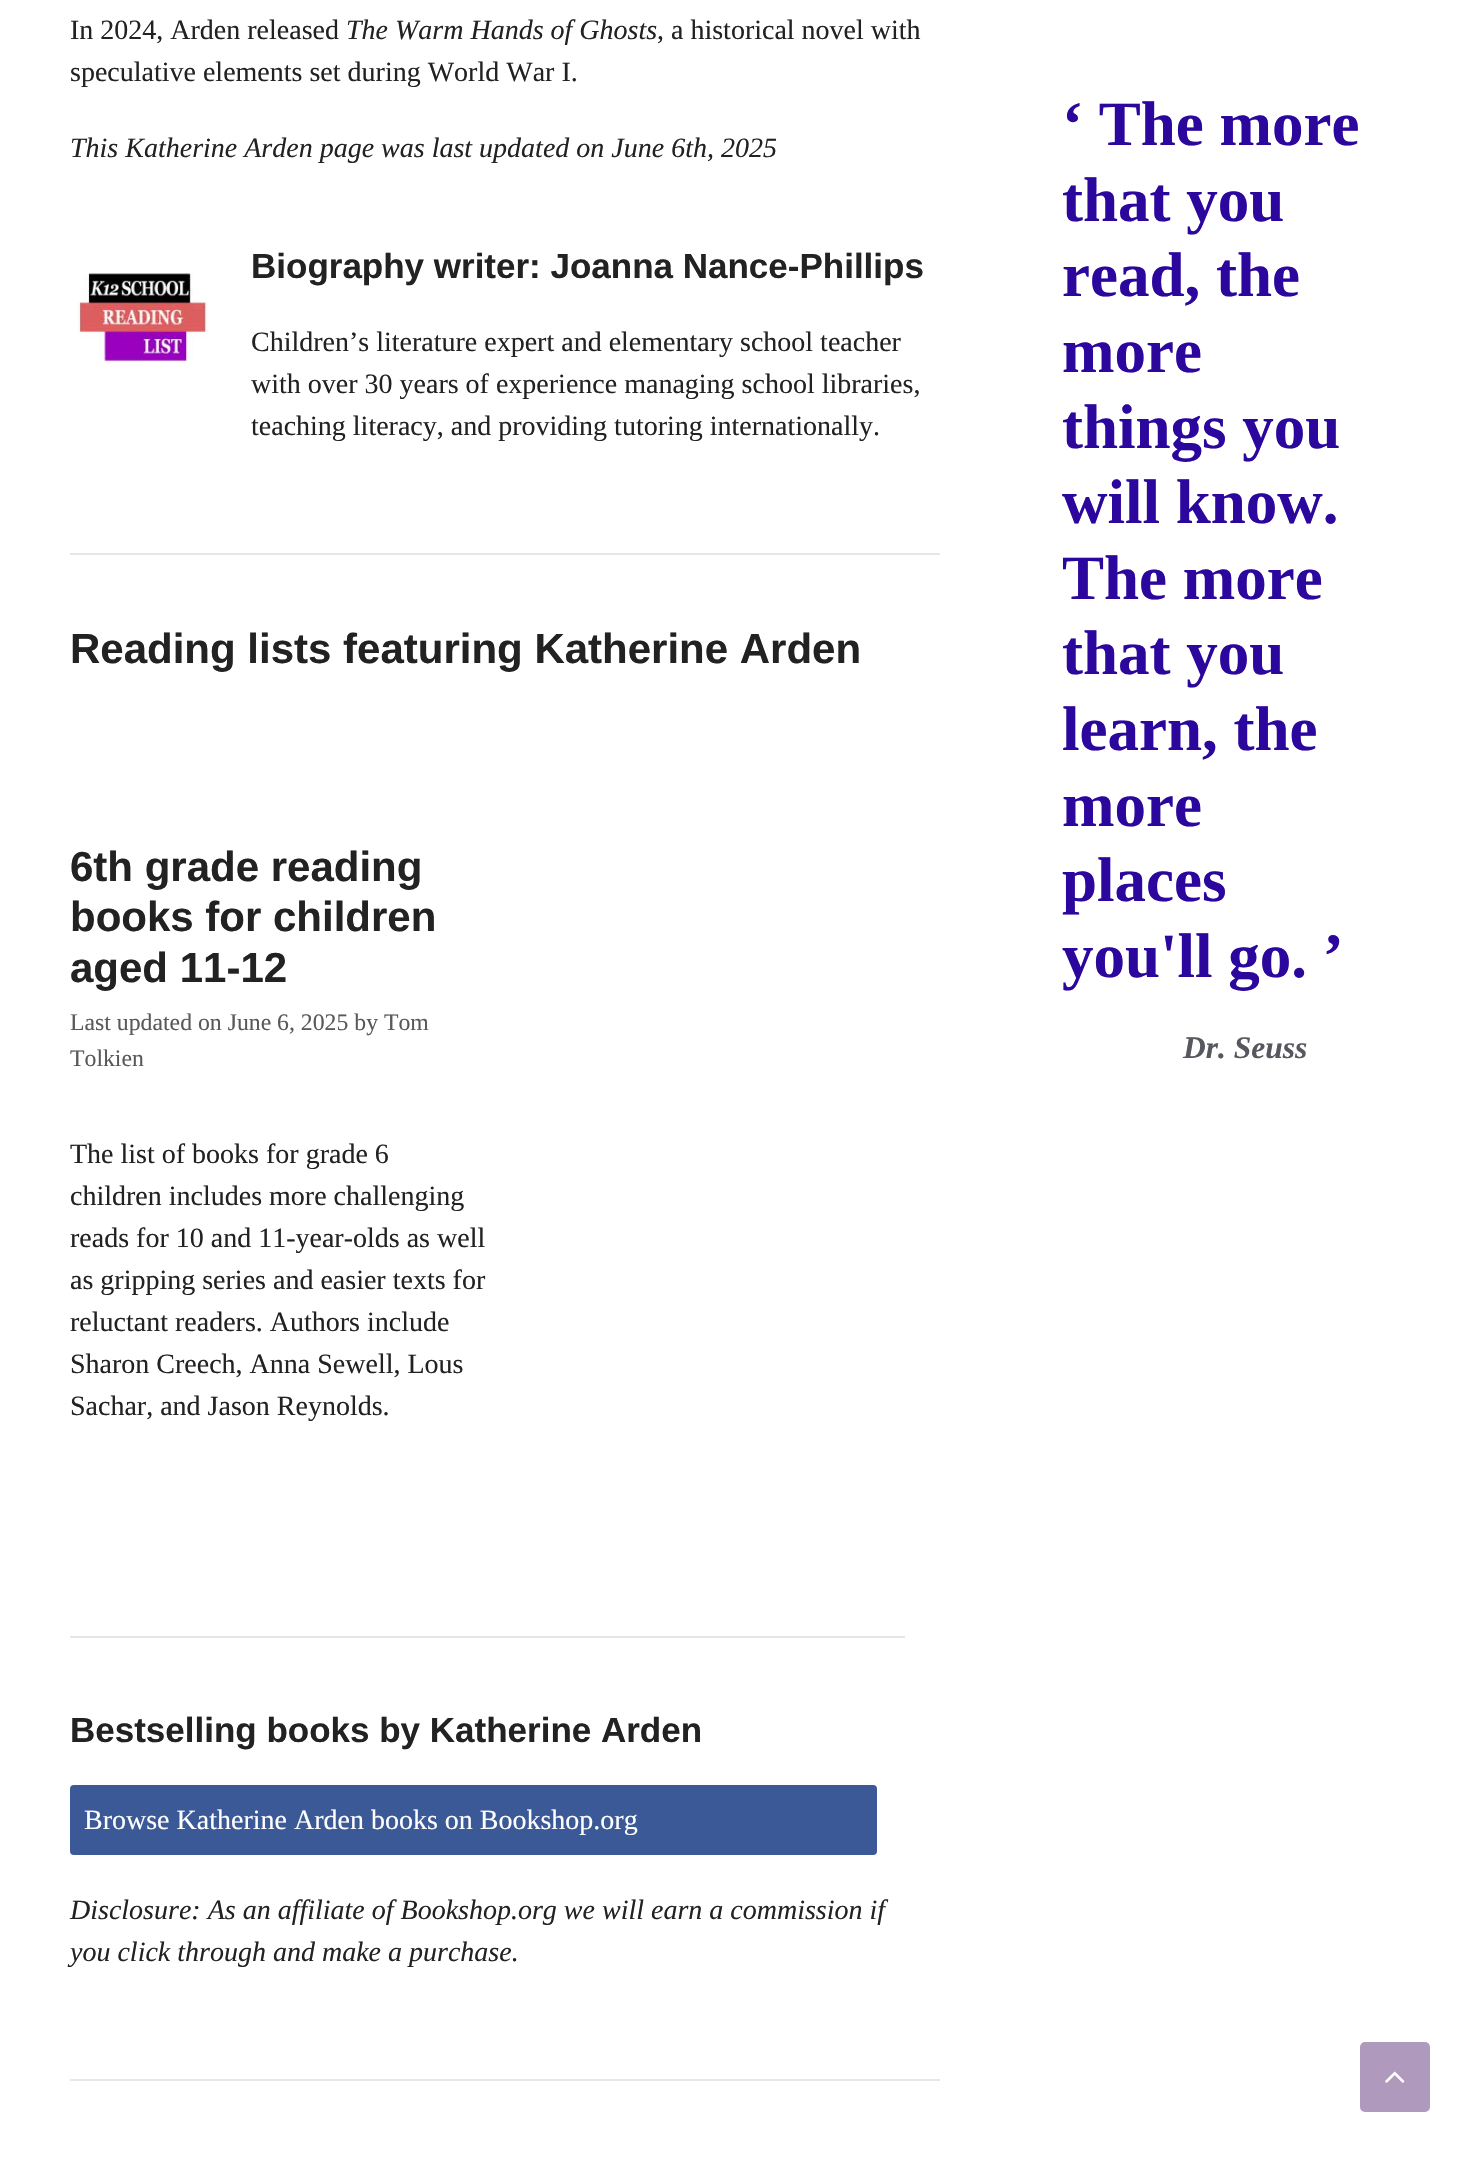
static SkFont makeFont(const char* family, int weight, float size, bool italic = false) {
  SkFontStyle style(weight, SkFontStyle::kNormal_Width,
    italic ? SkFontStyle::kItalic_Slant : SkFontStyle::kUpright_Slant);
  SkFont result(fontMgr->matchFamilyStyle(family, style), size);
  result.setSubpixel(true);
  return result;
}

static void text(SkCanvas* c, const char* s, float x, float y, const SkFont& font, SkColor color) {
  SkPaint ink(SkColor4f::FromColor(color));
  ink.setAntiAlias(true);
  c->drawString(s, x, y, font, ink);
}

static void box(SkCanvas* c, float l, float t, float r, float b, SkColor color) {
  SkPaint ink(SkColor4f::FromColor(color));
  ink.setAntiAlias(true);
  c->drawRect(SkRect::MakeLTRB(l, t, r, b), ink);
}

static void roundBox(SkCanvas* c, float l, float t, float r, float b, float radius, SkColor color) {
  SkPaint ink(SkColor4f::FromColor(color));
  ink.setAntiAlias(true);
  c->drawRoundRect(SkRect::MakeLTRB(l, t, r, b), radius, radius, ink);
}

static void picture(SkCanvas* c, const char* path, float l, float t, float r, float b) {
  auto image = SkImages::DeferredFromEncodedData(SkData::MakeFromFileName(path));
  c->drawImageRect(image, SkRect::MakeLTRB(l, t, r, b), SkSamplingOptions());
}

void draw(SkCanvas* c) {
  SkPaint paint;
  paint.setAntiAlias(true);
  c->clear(0xffffffff);
  SkFont face1 = makeFont("Liberation Serif", 400, 28);
  text(c, "In 2024, Arden released", 70, 39, face1, 0xff222222);
  SkFont face2 = makeFont("Liberation Serif", 400, 28, true);
  text(c, "The Warm Hands of Ghosts", 346, 39, face2, 0xff222222);
  text(c, ", a historical novel with", 657, 39, face1, 0xff222222);
  text(c, "speculative elements set during World War I.", 70, 81, face1, 0xff222222);
  text(c, "This Katherine Arden page was last updated on June 6th, 2025", 70, 157, face2, 0xff222222);
  picture(c, "img_01.png", 77, 273, 208, 362);
  SkFont face3 = makeFont("Liberation Sans", 700, 35);
  text(c, "Biography writer: Joanna Nance-Phillips", 251, 278, face3, 0xff222222);
  text(c, "Children’s literature expert and elementary school teacher", 251, 351, face1, 0xff222222);
  text(c, "with over 30 years of experience managing school libraries,", 251, 393, face1, 0xff222222);
  text(c, "teaching literacy, and providing tutoring internationally.", 251, 435, face1, 0xff222222);
  box(c, 70, 553, 940, 555, 0xffe6e6e6);
  SkFont face4 = makeFont("Liberation Sans", 700, 42);
  text(c, "Reading lists featuring Katherine Arden", 70, 663, face4, 0xff222222);
  text(c, "6th grade reading", 70, 881, face4, 0xff222222);
  text(c, "books for children", 70, 931, face4, 0xff222222);
  text(c, "aged 11-12", 70, 982, face4, 0xff222222);
  SkFont face5 = makeFont("Liberation Serif", 400, 23.75f);
  text(c, "Last updated on June 6, 2025 by Tom", 70, 1030, face5, 0xff595959);
  text(c, "Tolkien", 70, 1066, face5, 0xff595959);
  text(c, "The list of books for grade 6", 70, 1163, face1, 0xff222222);
  text(c, "children includes more challenging", 70, 1205, face1, 0xff222222);
  text(c, "reads for 10 and 11-year-olds as well", 70, 1247, face1, 0xff222222);
  text(c, "as gripping series and easier texts for", 70, 1289, face1, 0xff222222);
  text(c, "reluctant readers. Authors include", 70, 1331, face1, 0xff222222);
  text(c, "Sharon Creech, Anna Sewell, Lous", 70, 1373, face1, 0xff222222);
  text(c, "Sachar, and Jason Reynolds.", 70, 1415, face1, 0xff222222);
  box(c, 70, 1636, 905, 1638, 0xffe6e6e6);
  text(c, "Bestselling books by Katherine Arden", 70, 1742, face3, 0xff222222);
  roundBox(c, 70, 1785, 877, 1855, 4, 0xff3b5997);
  text(c, "Browse Katherine Arden books on Bookshop.org", 84, 1829, face1, 0xffffffff);
  text(c, "Disclosure: As an affiliate of Bookshop.org we will earn a commission if", 70, 1919, face2, 0xff222222);
  text(c, "you click through and make a purchase.", 70, 1961, face2, 0xff222222);
  box(c, 70, 2079, 940, 2081, 0xffe6e6e6);
  SkFont face6 = makeFont("Liberation Serif", 700, 63);
  text(c, "‘ The more", 1062, 145, face6, 0xff2c079d);
  text(c, "that you", 1062, 221, face6, 0xff2c079d);
  text(c, "read, the", 1062, 296, face6, 0xff2c079d);
  text(c, "more", 1062, 372, face6, 0xff2c079d);
  text(c, "things you", 1062, 448, face6, 0xff2c079d);
  text(c, "will know.", 1062, 523, face6, 0xff2c079d);
  text(c, "The more", 1062, 599, face6, 0xff2c079d);
  text(c, "that you", 1062, 674, face6, 0xff2c079d);
  text(c, "learn, the", 1062, 750, face6, 0xff2c079d);
  text(c, "more", 1062, 826, face6, 0xff2c079d);
  text(c, "places", 1062, 901, face6, 0xff2c079d);
  text(c, "you'll go. ’", 1062, 977, face6, 0xff2c079d);
  SkFont face7 = makeFont("Liberation Serif", 700, 31.5f, true);
  text(c, "Dr. Seuss", 1183, 1058, face7, 0xff575760);
  roundBox(c, 1360, 2042, 1430, 2112, 5, 0xffaf9abd);
  picture(c, "img_02.png", 1385, 2071, 1405, 2083);
}
